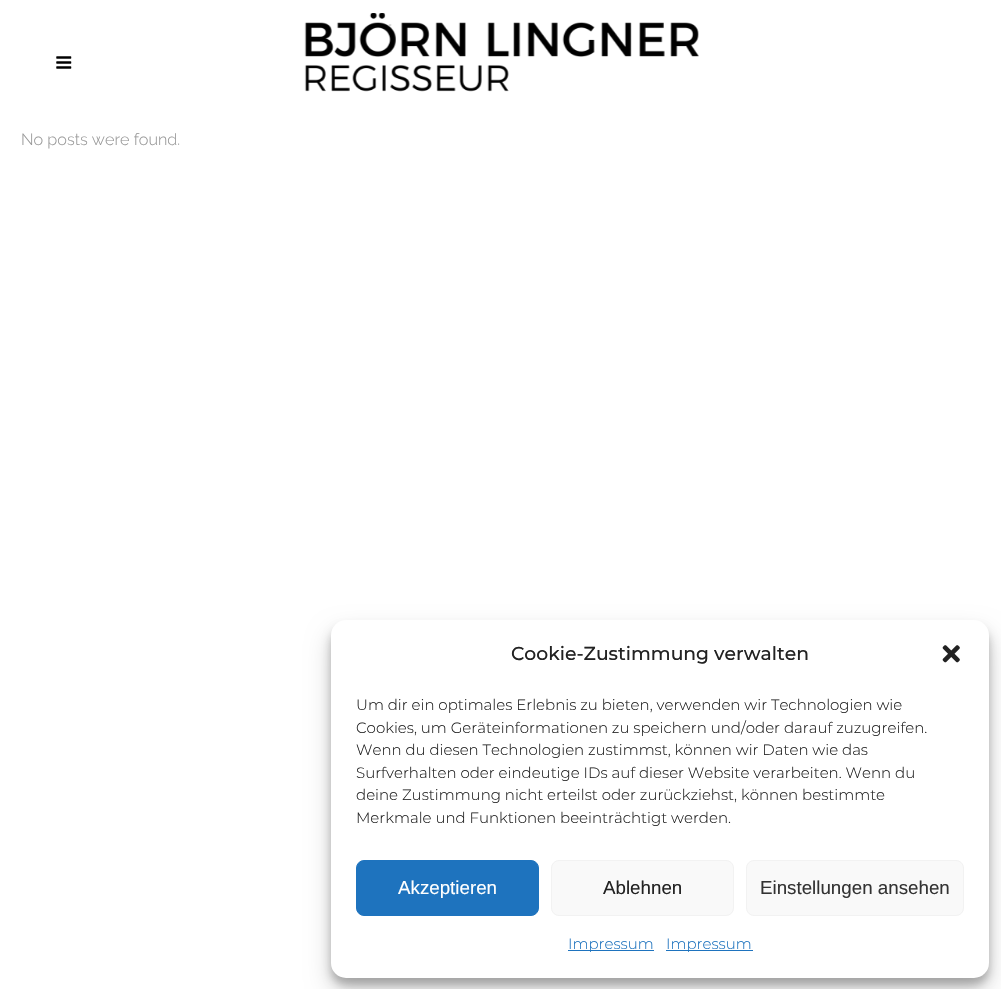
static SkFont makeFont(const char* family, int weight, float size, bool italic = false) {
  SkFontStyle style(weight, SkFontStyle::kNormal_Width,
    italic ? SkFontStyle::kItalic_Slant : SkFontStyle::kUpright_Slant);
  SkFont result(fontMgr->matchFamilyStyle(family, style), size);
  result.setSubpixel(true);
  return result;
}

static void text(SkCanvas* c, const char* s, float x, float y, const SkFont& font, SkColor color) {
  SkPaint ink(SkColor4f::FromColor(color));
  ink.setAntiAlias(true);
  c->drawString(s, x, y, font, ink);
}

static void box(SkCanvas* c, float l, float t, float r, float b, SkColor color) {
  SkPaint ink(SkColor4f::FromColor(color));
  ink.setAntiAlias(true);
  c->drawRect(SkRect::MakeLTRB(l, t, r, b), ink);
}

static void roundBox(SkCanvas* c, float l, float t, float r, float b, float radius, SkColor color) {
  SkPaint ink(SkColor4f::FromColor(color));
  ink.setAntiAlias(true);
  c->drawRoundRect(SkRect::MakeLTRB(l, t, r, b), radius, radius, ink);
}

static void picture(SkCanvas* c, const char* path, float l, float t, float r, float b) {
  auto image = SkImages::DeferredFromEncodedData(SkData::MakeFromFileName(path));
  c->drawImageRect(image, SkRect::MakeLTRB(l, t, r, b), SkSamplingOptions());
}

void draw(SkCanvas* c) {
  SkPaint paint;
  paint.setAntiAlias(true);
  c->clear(0xffffffff);
  picture(c, "img_01.png", 56, 56, 72, 69);
  picture(c, "img_02.png", 304, 13, 699, 92);
  SkFont face1 = makeFont("Raleway", 300, 16.25f);
  text(c, "No posts were found.", 21, 145, face1, 0xff999999);
  paint.setColor(0x3b000000);
  paint.setMaskFilter(SkMaskFilter::MakeBlur(kNormal_SkBlurStyle, 4));
  c->drawRoundRect(SkRect::MakeLTRB(331, 628, 989, 985), 15, 15, paint);
  paint.setMaskFilter(nullptr);
  paint.setColor(0x30000000);
  paint.setMaskFilter(SkMaskFilter::MakeBlur(kNormal_SkBlurStyle, 12.5f));
  c->drawRoundRect(SkRect::MakeLTRB(331, 633, 989, 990), 15, 15, paint);
  paint.setMaskFilter(nullptr);
  roundBox(c, 331, 620, 989, 978, 15, 0xffffffff);
  SkFont face2 = makeFont("Montserrat", 500, 18.75f);
  text(c, "Cookie-Zustimmung verwalten", 511, 660, face2, 0xff222222);
  picture(c, "img_03.png", 942, 645, 960, 663);
  SkFont face3 = makeFont("Montserrat", 300, 15);
  text(c, "Um dir ein optimales Erlebnis zu bieten, verwenden wir Technologien wie", 356, 710, face3, 0xff222222);
  text(c, "Cookies, um Geräteinformationen zu speichern und/oder darauf zuzugreifen.", 356, 733, face3, 0xff222222);
  text(c, "Wenn du diesen Technologien zustimmst, können wir Daten wie das", 356, 755, face3, 0xff222222);
  text(c, "Surfverhalten oder eindeutige IDs auf dieser Website verarbeiten. Wenn du", 356, 778, face3, 0xff222222);
  text(c, "deine Zustimmung nicht erteilst oder zurückziehst, können bestimmte", 356, 800, face3, 0xff222222);
  text(c, "Merkmale und Funktionen beeinträchtigt werden.", 356, 823, face3, 0xff222222);
  paint.setColor(0xff1e73be);
  c->drawRoundRect(SkRect::MakeLTRB(356.5f, 860.5f, 538.5f, 915.5f), 7.5f, 7.5f, paint);
  paint.setStyle(SkPaint::kStroke_Style);
  paint.setStrokeWidth(1);
  c->drawRoundRect(SkRect::MakeLTRB(356.5f, 860.5f, 538.5f, 915.5f), 7.5f, 7.5f, paint);
  SkFont face4 = makeFont("Liberation Sans", 400, 18.75f);
  text(c, "Akzeptieren", 398, 894, face4, 0xffffffff);
  paint.setStyle(SkPaint::kFill_Style);
  paint.setColor(0xfff9f9f9);
  c->drawRoundRect(SkRect::MakeLTRB(551.5f, 860.5f, 733.5f, 915.5f), 7.5f, 7.5f, paint);
  paint.setStyle(SkPaint::kStroke_Style);
  paint.setColor(0xfff2f2f2);
  c->drawRoundRect(SkRect::MakeLTRB(551.5f, 860.5f, 733.5f, 915.5f), 7.5f, 7.5f, paint);
  text(c, "Ablehnen", 603, 894, face4, 0xff222222);
  paint.setStyle(SkPaint::kFill_Style);
  paint.setColor(0xfff9f9f9);
  c->drawRoundRect(SkRect::MakeLTRB(746.5f, 860.5f, 963.5f, 915.5f), 7.5f, 7.5f, paint);
  paint.setStyle(SkPaint::kStroke_Style);
  paint.setColor(0xfff2f2f2);
  c->drawRoundRect(SkRect::MakeLTRB(746.5f, 860.5f, 963.5f, 915.5f), 7.5f, 7.5f, paint);
  text(c, "Einstellungen ansehen", 760, 894, face4, 0xff333333);
  box(c, 568, 950, 654, 951, 0xff1e73be);
  text(c, "Impressum", 568, 949, face3, 0xff1e73be);
  box(c, 666, 950, 753, 951, 0xff1e73be);
  text(c, "Impressum", 666, 949, face3, 0xff1e73be);
}
